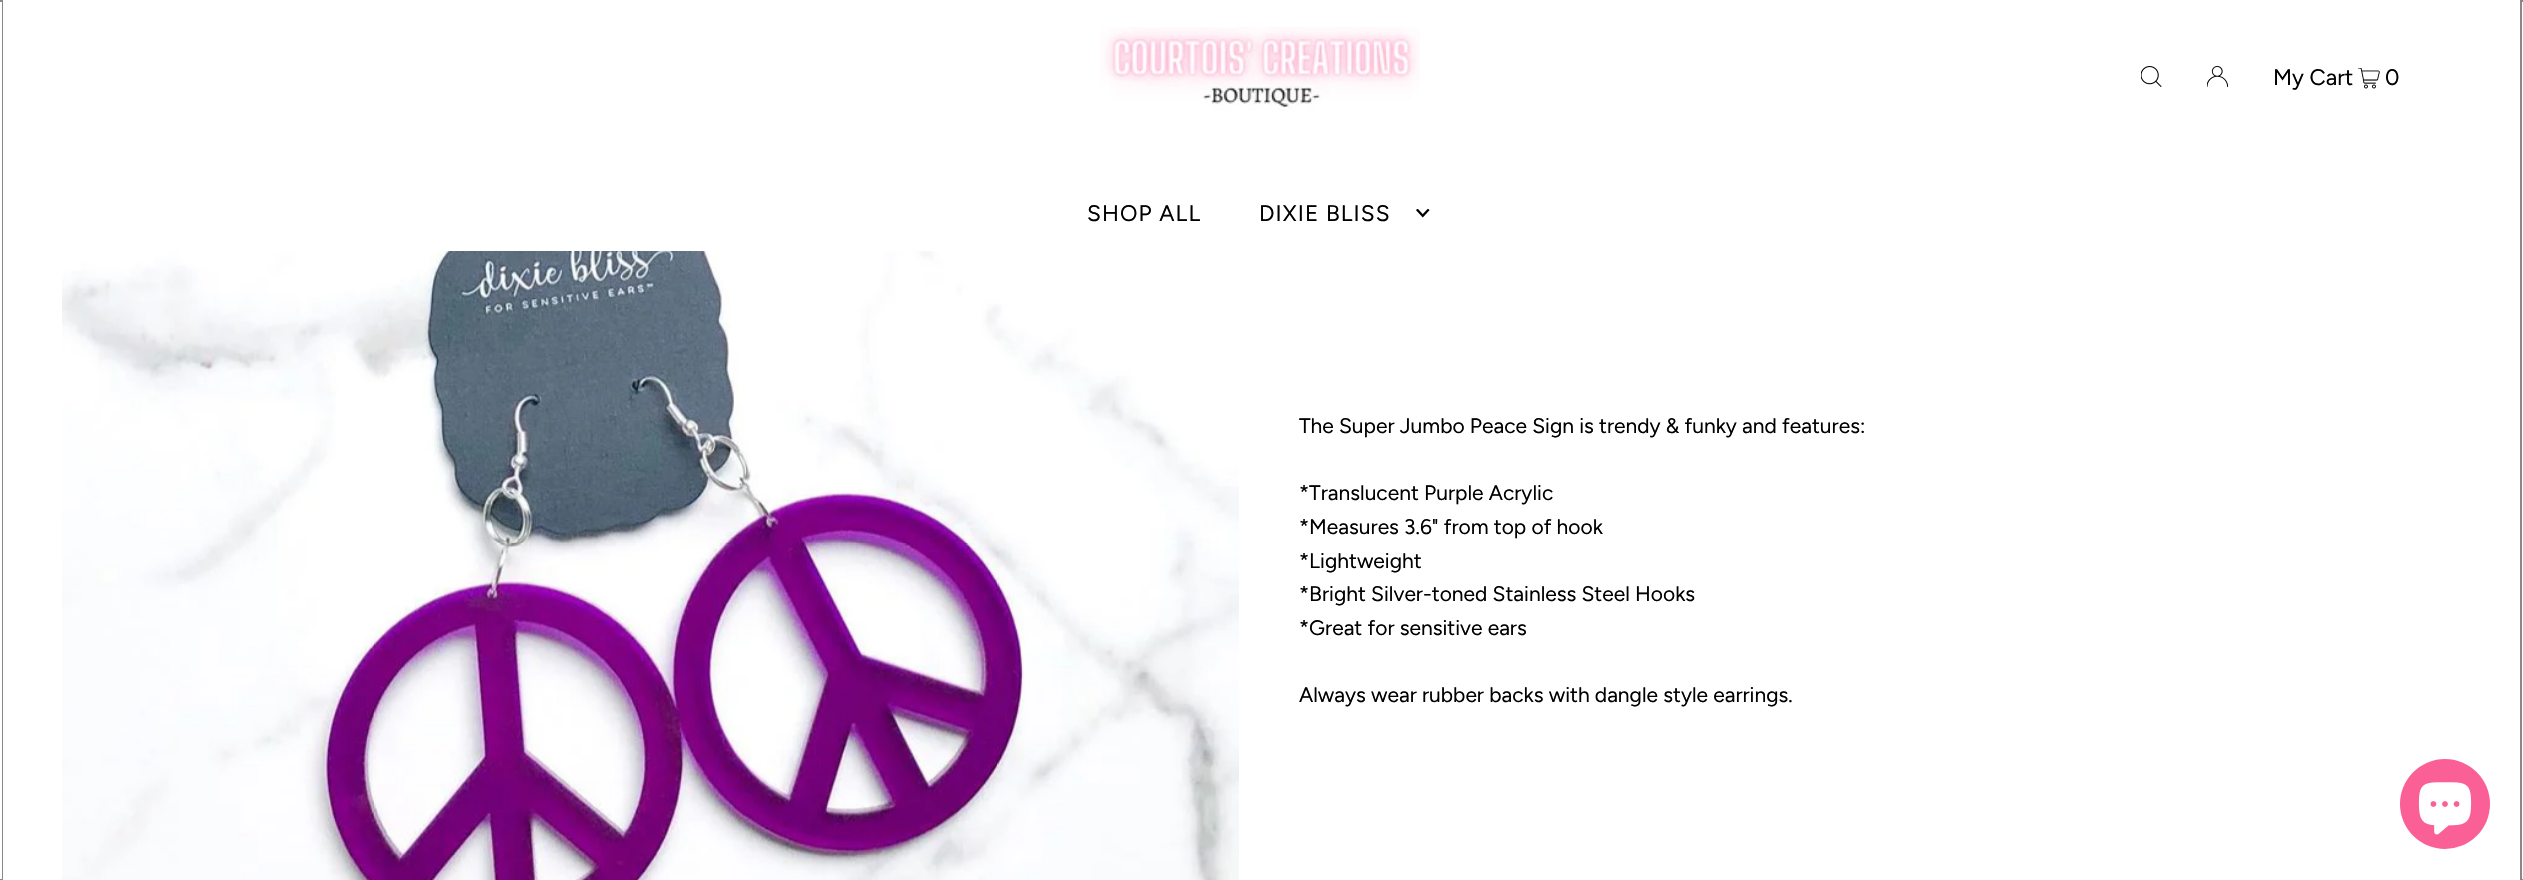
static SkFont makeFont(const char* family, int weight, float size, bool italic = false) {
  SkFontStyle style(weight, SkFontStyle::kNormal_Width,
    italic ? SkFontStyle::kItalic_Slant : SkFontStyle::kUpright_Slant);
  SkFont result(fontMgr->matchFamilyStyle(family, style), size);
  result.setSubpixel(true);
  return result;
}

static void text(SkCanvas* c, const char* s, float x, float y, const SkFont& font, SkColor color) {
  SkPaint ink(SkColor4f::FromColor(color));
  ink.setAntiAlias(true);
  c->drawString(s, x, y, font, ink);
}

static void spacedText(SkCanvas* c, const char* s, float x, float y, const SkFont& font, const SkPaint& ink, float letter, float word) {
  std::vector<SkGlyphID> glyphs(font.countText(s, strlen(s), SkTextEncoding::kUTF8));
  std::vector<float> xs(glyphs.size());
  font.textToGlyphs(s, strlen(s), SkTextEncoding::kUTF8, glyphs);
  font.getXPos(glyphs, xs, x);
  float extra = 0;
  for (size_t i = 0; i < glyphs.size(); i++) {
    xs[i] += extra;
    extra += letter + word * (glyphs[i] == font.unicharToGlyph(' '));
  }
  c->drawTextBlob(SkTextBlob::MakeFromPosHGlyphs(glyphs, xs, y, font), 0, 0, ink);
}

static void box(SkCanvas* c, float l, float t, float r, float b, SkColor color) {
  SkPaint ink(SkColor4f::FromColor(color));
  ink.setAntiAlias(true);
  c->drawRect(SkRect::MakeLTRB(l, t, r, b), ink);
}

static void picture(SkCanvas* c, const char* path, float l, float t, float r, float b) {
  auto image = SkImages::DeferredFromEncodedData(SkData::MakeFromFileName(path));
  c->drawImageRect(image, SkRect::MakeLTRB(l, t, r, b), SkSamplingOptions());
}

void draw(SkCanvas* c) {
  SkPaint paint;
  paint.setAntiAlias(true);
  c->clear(0xffffffff);
  paint.setStyle(SkPaint::kStroke_Style);
  paint.setStrokeWidth(2);
  paint.setColor(0xff888888);
  c->drawRect(SkRect::MakeLTRB(-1, 1, 2, 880), paint);
  box(c, 1, 2, 2, 879, 0xffffffff);
  picture(c, "img_01.png", 1100, 27, 1420, 111);
  picture(c, "img_02.png", 2141, 66, 2162, 87);
  picture(c, "img_03.png", 2207, 66, 2228, 87);
  SkFont face1 = makeFont("Figtree", 400, 22.5f);
  text(c, "My Cart", 2273, 85, face1, 0xff000000);
  picture(c, "img_04.png", 2358, 68, 2380, 89);
  text(c, "0", 2385, 85, face1, 0xff000000);
  paint.setStyle(SkPaint::kFill_Style);
  paint.setColor(0xff000000);
  spacedText(c, "SHOP ALL", 1087, 221, face1, paint, 1.1f, 0);
  spacedText(c, "DIXIE BLISS", 1259, 221, face1, paint, 1.1f, 0);
  picture(c, "img_05.png", 1416, 209, 1430, 218);
  picture(c, "img_06.png", 62, 251, 1239, 880);
  SkFont face2 = makeFont("Figtree", 400, 21);
  text(c, "The Super Jumbo Peace Sign is trendy & funky and features:", 1299, 433, face2, 0xff000000);
  text(c, "*Translucent Purple Acrylic", 1299, 500, face2, 0xff000000);
  text(c, "*Measures 3.6\" from top of hook", 1299, 534, face2, 0xff000000);
  text(c, "*Lightweight", 1299, 568, face2, 0xff000000);
  text(c, "*Bright Silver-toned Stainless Steel Hooks", 1299, 601, face2, 0xff000000);
  text(c, "*Great for sensitive ears", 1299, 635, face2, 0xff000000);
  text(c, "Always wear rubber backs with dangle style earrings.", 1299, 702, face2, 0xff000000);
  paint.setStyle(SkPaint::kStroke_Style);
  paint.setColor(0xff888888);
  c->drawRect(SkRect::MakeLTRB(2521, 1, 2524, 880), paint);
  paint.setStyle(SkPaint::kFill_Style);
  paint.setColor(0xfffa6096);
  c->drawCircle(2445, 804, 45, paint);
  picture(c, "img_07.png", 2418, 782, 2472, 835);
}
